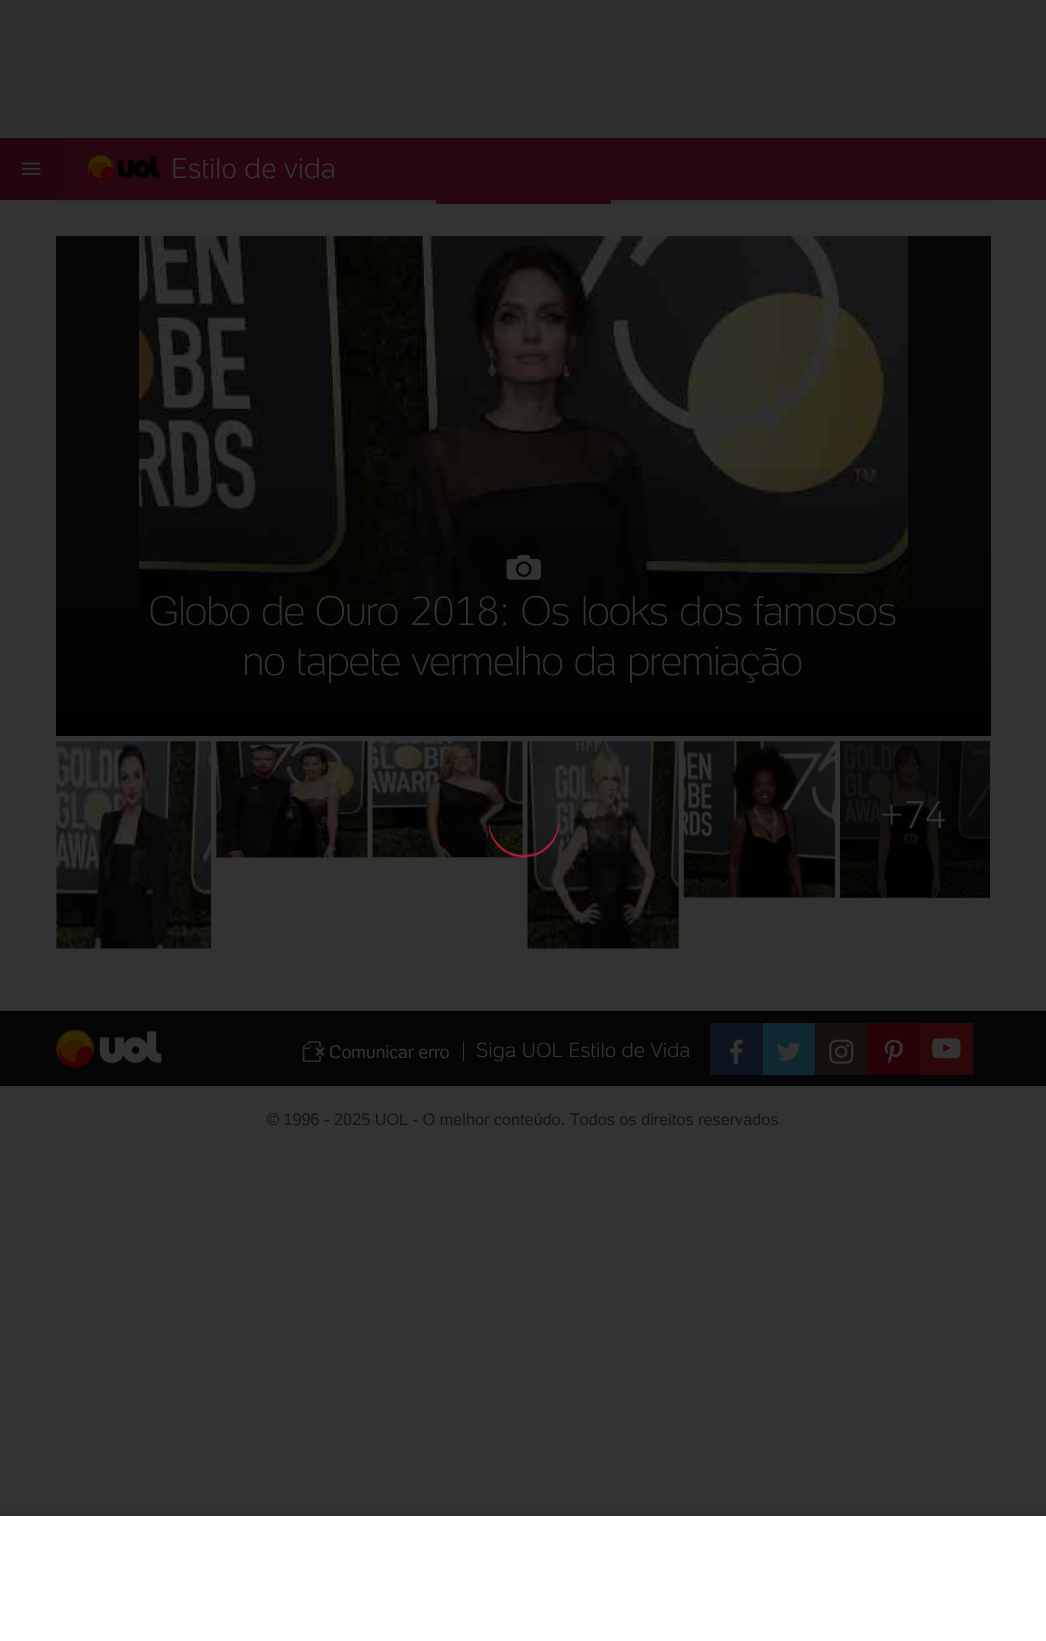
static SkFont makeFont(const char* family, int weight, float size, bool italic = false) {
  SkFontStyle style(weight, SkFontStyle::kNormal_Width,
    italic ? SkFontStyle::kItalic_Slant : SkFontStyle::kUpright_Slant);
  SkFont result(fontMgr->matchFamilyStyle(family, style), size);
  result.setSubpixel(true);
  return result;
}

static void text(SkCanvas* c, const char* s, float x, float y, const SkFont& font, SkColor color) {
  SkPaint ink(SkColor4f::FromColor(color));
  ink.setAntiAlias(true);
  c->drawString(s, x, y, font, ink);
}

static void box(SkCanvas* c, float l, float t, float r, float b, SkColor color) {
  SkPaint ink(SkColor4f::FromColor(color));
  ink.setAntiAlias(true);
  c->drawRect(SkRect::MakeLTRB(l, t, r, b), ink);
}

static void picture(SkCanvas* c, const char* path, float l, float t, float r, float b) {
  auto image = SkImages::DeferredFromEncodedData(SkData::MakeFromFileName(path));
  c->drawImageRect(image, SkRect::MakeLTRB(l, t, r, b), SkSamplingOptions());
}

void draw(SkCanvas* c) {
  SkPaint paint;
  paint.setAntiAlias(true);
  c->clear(0xff333333);
  box(c, 840, 741, 990, 898, 0xff141414);
  box(c, 0, 0, 1046, 138, 0xff303030);
  picture(c, "img_01.png", 0, 0, 1046, 138);
  box(c, 0, 138, 1046, 200, 0xff28060f);
  box(c, 0, 138, 63, 199, 0xff22050d);
  picture(c, "img_02.png", 21, 162, 41, 175);
  picture(c, "img_03.png", 87, 155, 160, 182);
  SkFont face1 = makeFont("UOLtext", 300, 27.5f);
  text(c, "Estilo de vida", 171, 178, face1, 0xff333333);
  box(c, 56, 200, 991, 203, 0xff2e2e2e);
  box(c, 436, 200, 611, 204, 0xff28060f);
  box(c, 56, 236, 991, 736, 0xff050505);
  picture(c, "img_04.png", 139, 236, 908, 611);
  {
    const SkColor colors[] = {0xe6000000, 0x33000000, 0x00000000};
    const float stops[] = {0, 0.6f, 1};
    const SkPoint ends[] = {{524, 736}, {524, 436}};
    paint.setShader(SkGradientShader::MakeLinear(ends, colors, stops, 3, SkTileMode::kClamp));
    paint.setAlpha(255);
  }
  c->drawRect(SkRect::MakeLTRB(56, 468, 991, 736), paint);
  picture(c, "img_05.png", 506, 555, 541, 580);
  SkFont face2 = makeFont("UOLtext", 100, 40);
  text(c, "Globo de Ouro 2018: Os looks dos famosos", 149, 625, face2, 0xff333333);
  text(c, "no tapete vermelho da premiação", 243, 675, face2, 0xff333333);
  picture(c, "img_06.png", 56, 741, 212, 950);
  picture(c, "img_07.png", 216, 741, 368, 858);
  picture(c, "img_08.png", 372, 741, 523, 858);
  picture(c, "img_09.png", 526, 741, 679, 950);
  picture(c, "img_10.png", 683, 741, 835, 898);
  picture(c, "img_11.png", 840, 741, 990, 898);
  SkFont face3 = makeFont("UOLtext", 300, 38);
  text(c, "+74", 879, 828, face3, 0xff333333);
  picture(c, "img_12.png", 488, 821, 559, 858);
  box(c, 0, 1011, 1046, 1086, 0xff050505);
  picture(c, "img_13.png", 56, 1029, 162, 1069);
  box(c, 463, 1041, 464, 1061, 0xff333333);
  picture(c, "img_14.png", 302, 1041, 325, 1062);
  SkFont face4 = makeFont("UOLtext", 400, 17.5f);
  text(c, "Comunicar erro", 329, 1058, face4, 0xff333333);
  SkFont face5 = makeFont("UOLtext", 300, 20);
  text(c, "Siga UOL Estilo de Vida", 476, 1057, face5, 0xff333333);
  box(c, 710, 1023, 763, 1075, 0xff0c121e);
  picture(c, "img_15.png", 730, 1039, 743, 1064);
  box(c, 763, 1023, 815, 1075, 0xff0e2731);
  picture(c, "img_16.png", 777, 1042, 801, 1061);
  box(c, 815, 1023, 868, 1075, 0xff16100d);
  picture(c, "img_17.png", 829, 1039, 854, 1064);
  box(c, 868, 1023, 920, 1075, 0xff260206);
  picture(c, "img_18.png", 884, 1039, 903, 1064);
  box(c, 920, 1023, 973, 1075, 0xff2b0707);
  picture(c, "img_19.png", 932, 1038, 961, 1059);
  SkFont face6 = makeFont("UOLtext", 400, 16.25f);
  text(c, "© 1996 - 2025 UOL - O melhor conteúdo. Todos os direitos reservados", 267, 1125, face6, 0xff141414);
  paint.setShader(nullptr);
  paint.setColor(0x33000000);
  paint.setMaskFilter(SkMaskFilter::MakeBlur(kNormal_SkBlurStyle, 6));
  c->drawRect(SkRect::MakeLTRB(0, 1516, 1046, 1641), paint);
  paint.setMaskFilter(nullptr);
  box(c, 0, 1516, 1046, 1641, 0xffffffff);
}
